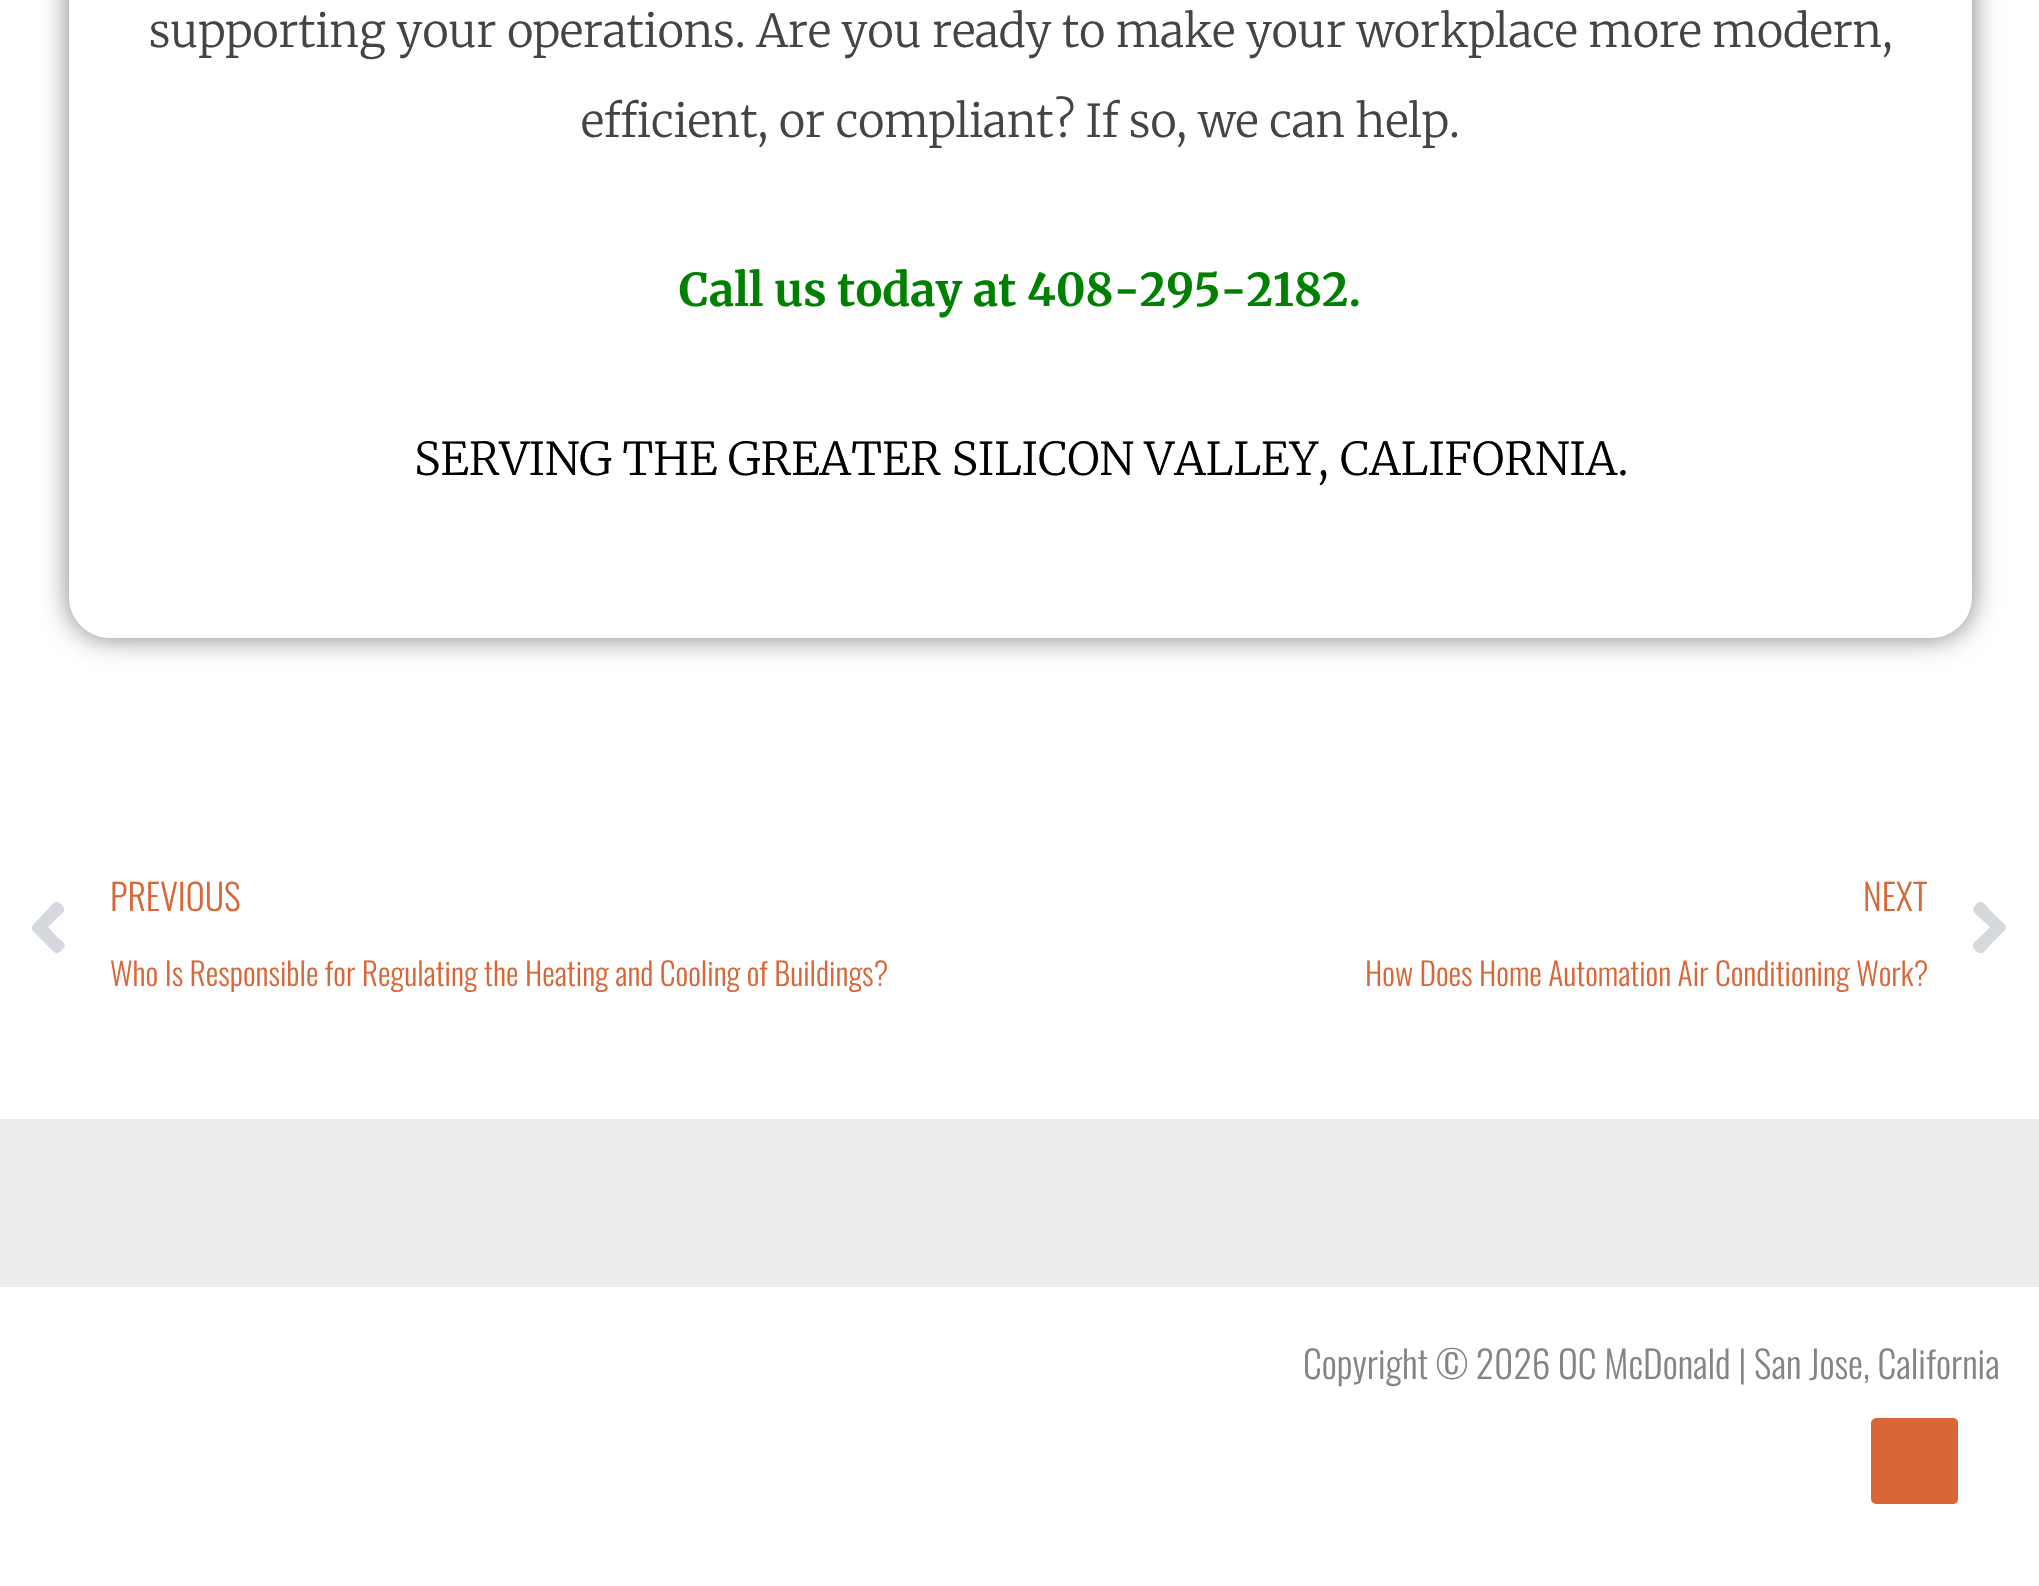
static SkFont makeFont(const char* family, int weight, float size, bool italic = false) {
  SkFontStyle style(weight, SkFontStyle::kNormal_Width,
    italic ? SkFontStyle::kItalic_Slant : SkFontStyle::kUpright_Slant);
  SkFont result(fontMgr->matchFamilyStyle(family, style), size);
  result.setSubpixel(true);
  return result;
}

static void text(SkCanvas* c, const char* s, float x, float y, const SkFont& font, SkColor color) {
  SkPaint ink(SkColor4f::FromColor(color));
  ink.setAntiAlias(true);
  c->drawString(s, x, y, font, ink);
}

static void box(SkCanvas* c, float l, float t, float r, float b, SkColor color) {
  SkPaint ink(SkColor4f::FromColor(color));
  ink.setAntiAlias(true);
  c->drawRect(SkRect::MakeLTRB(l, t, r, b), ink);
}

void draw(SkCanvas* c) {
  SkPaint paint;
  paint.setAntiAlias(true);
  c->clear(0xffffffff);
  c->save();
  c->clipPath(SkPathBuilder(SkPathFillType::kEvenOdd).moveTo(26, 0).lineTo(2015, 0).lineTo(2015, 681).lineTo(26, 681).close().moveTo(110, -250).lineTo(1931, -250).cubicTo(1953.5f, -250, 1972, -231.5f, 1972, -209).lineTo(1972, 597).cubicTo(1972, 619.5f, 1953.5f, 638, 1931, 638).lineTo(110, 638).cubicTo(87.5f, 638, 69, 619.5f, 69, 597).lineTo(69, -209).cubicTo(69, -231.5f, 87.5f, -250, 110, -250).close().detach(), true);
  paint.setColor(0x80000000);
  paint.setMaskFilter(SkMaskFilter::MakeBlur(kNormal_SkBlurStyle, 14));
  c->drawRoundRect(SkRect::MakeLTRB(69, -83, 1972, 638), 41, 41, paint);
  paint.setMaskFilter(nullptr);
  c->restore();
  SkFont face1 = makeFont("Merriweather", 300, 45.15f);
  text(c, "supporting your operations. Are you ready to make your workplace more modern,", 149, 47, face1, 0xff444444);
  text(c, "efficient, or compliant? If so, we can help.", 581, 137, face1, 0xff444444);
  SkFont face2 = makeFont("Merriweather", 700, 45.15f);
  text(c, "Call us today at 408-295-2182.", 679, 306, face2, 0xff008000);
  text(c, "SERVING THE GREATER SILICON VALLEY, CALIFORNIA.", 414, 475, face1, 0xff000000);
  paint.setColor(0xffd5d8dc);
  c->drawPath(SkPathBuilder().moveTo(33, 925).lineTo(47, 910).cubicTo(54, 903, 55, 898, 62, 905).cubicTo(67, 911, 63, 913, 58, 917).lineTo(48, 927).lineTo(58, 938).cubicTo(61, 940, 67, 944, 64, 948).cubicTo(56, 957, 55, 953, 47, 945).lineTo(36, 934).cubicTo(34, 932, 29, 928, 33, 925).close().detach(), paint);
  SkFont face3 = makeFont("Oswald", 300, 36);
  text(c, "PREVIOUS", 110, 911, face3, 0xffd86636);
  SkFont face4 = makeFont("Oswald", 300, 31.6f);
  text(c, "Who Is Responsible for Regulating the Heating and Cooling of Buildings?", 110, 986, face4, 0xffd86636);
  text(c, "NEXT", 1863, 911, face3, 0xffd86636);
  text(c, "How Does Home Automation Air Conditioning Work?", 1365, 986, face4, 0xffd86636);
  c->drawPath(SkPathBuilder().moveTo(2005, 930).lineTo(1990, 945).cubicTo(1984, 952, 1982, 957, 1975, 950).cubicTo(1970, 944, 1975, 942, 1979, 938).lineTo(1990, 927).lineTo(1979, 917).cubicTo(1977, 915, 1971, 911, 1974, 907).cubicTo(1981, 898, 1983, 902, 1990, 910).lineTo(2001, 921).cubicTo(2004, 923, 2008, 927, 2005, 930).close().detach(), paint);
  box(c, 0, 1119, 2039, 1287, 0xffededed);
  SkFont face5 = makeFont("Oswald", 300, 37.6f);
  text(c, "Copyright © 2026 OC McDonald | San Jose, California", 1303, 1379, face5, 0xff848484);
  paint.setColor(0xffd86636);
  c->drawPath(SkPathBuilder().moveTo(1952, 1504).lineTo(1877, 1504).cubicTo(1874, 1504, 1871, 1502, 1871, 1499).lineTo(1871, 1423).cubicTo(1871, 1420, 1874, 1418, 1877, 1418).lineTo(1952, 1418).cubicTo(1956, 1418, 1958, 1420, 1958, 1423).lineTo(1958, 1499).cubicTo(1958, 1502, 1956, 1504, 1952, 1504).close().detach(), paint);
}
